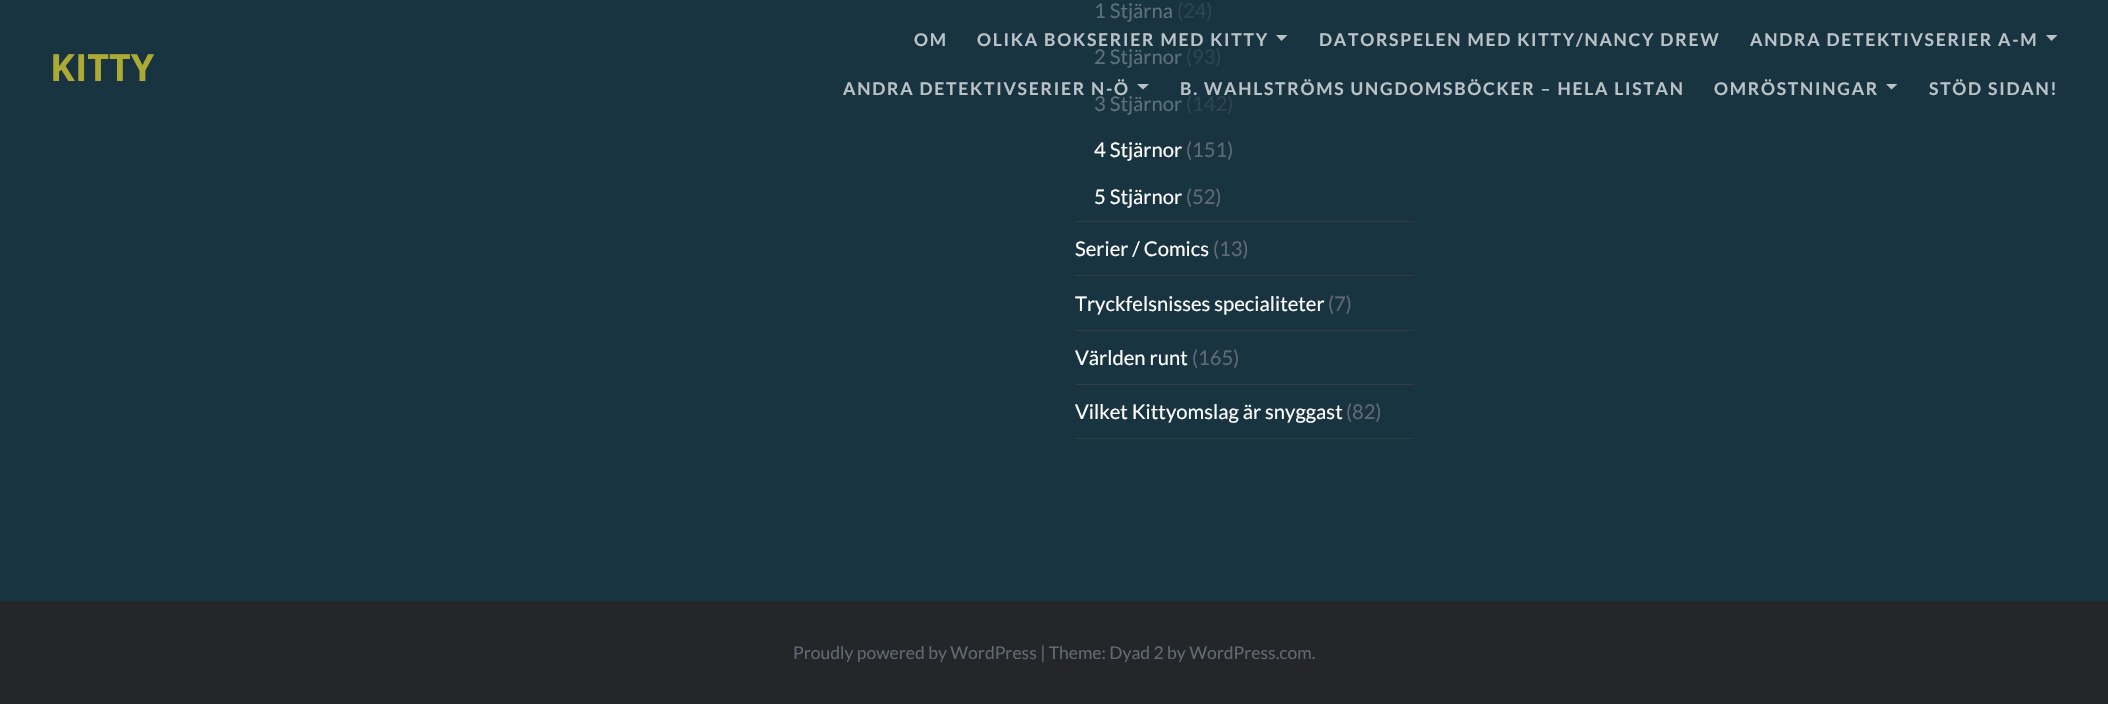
static SkFont makeFont(const char* family, int weight, float size, bool italic = false) {
  SkFontStyle style(weight, SkFontStyle::kNormal_Width,
    italic ? SkFontStyle::kItalic_Slant : SkFontStyle::kUpright_Slant);
  SkFont result(fontMgr->matchFamilyStyle(family, style), size);
  result.setSubpixel(true);
  return result;
}

static void text(SkCanvas* c, const char* s, float x, float y, const SkFont& font, SkColor color) {
  SkPaint ink(SkColor4f::FromColor(color));
  ink.setAntiAlias(true);
  c->drawString(s, x, y, font, ink);
}

static void spacedText(SkCanvas* c, const char* s, float x, float y, const SkFont& font, const SkPaint& ink, float letter, float word) {
  std::vector<SkGlyphID> glyphs(font.countText(s, strlen(s), SkTextEncoding::kUTF8));
  std::vector<float> xs(glyphs.size());
  font.textToGlyphs(s, strlen(s), SkTextEncoding::kUTF8, glyphs);
  font.getXPos(glyphs, xs, x);
  float extra = 0;
  for (size_t i = 0; i < glyphs.size(); i++) {
    xs[i] += extra;
    extra += letter + word * (glyphs[i] == font.unicharToGlyph(' '));
  }
  c->drawTextBlob(SkTextBlob::MakeFromPosHGlyphs(glyphs, xs, y, font), 0, 0, ink);
}

static void box(SkCanvas* c, float l, float t, float r, float b, SkColor color) {
  SkPaint ink(SkColor4f::FromColor(color));
  ink.setAntiAlias(true);
  c->drawRect(SkRect::MakeLTRB(l, t, r, b), ink);
}

void draw(SkCanvas* c) {
  SkPaint paint;
  paint.setAntiAlias(true);
  c->clear(0xff193441);
  box(c, 1075, 221, 1414, 222, 0xff363b40);
  SkFont face1 = makeFont("Lato", 400, 20.25f);
  text(c, "1 Stjärna", 1094, 18, face1, 0xff5e717a);
  text(c, "(24)", 1177, 18, face1, 0xff2f4450);
  text(c, "2 Stjärnor", 1094, 64, face1, 0xff5e717a);
  text(c, "(93)", 1186, 64, face1, 0xff2f4450);
  text(c, "3 Stjärnor", 1094, 111, face1, 0xff5e717a);
  text(c, "(142)", 1186, 111, face1, 0xff2f4450);
  text(c, "4 Stjärnor", 1094, 157, face1, 0xffffffff);
  text(c, "(151)", 1186, 157, face1, 0xff616a74);
  text(c, "5 Stjärnor", 1094, 204, face1, 0xffffffff);
  text(c, "(52)", 1186, 204, face1, 0xff616a74);
  box(c, 1075, 275, 1414, 276, 0xff363b40);
  text(c, "Serier / Comics", 1075, 256, face1, 0xffffffff);
  text(c, "(13)", 1213, 256, face1, 0xff616a74);
  box(c, 1075, 330, 1414, 331, 0xff363b40);
  text(c, "Tryckfelsnisses specialiteter", 1075, 311, face1, 0xffffffff);
  text(c, "(7)", 1328, 311, face1, 0xff616a74);
  box(c, 1075, 384, 1414, 385, 0xff363b40);
  text(c, "Världen runt", 1075, 365, face1, 0xffffffff);
  text(c, "(165)", 1192, 365, face1, 0xff616a74);
  box(c, 1075, 438, 1414, 439, 0xff363b40);
  text(c, "Vilket Kittyomslag är snyggast", 1075, 419, face1, 0xffffffff);
  text(c, "(82)", 1346, 419, face1, 0xff616a74);
  box(c, 0, 601, 2108, 704, 0xff242629);
  SkFont face2 = makeFont("Lato", 400, 17.5f);
  text(c, "Proudly powered by WordPress | Theme: Dyad 2 by WordPress.com.", 793, 659, face2, 0xff616a74);
  SkFont face3 = makeFont("Open Sans", 700, 37.5f);
  text(c, "KITTY", 50, 81, face3, 0xffadaa34);
  SkFont face4 = makeFont("Lato", 700, 17.5f);
  paint.setColor(0xffbac2c6);
  spacedText(c, "OM", 914, 46, face4, paint, 1.75f, 0);
  spacedText(c, "OLIKA BOKSERIER MED KITTY", 977, 46, face4, paint, 1.75f, 0);
  c->drawPath(SkPathBuilder().moveTo(1276, 35).lineTo(1287.5f, 35).lineTo(1281.5f, 41).close().detach(), paint);
  spacedText(c, "DATORSPELEN MED KITTY/NANCY DREW", 1319, 46, face4, paint, 1.75f, 0);
  spacedText(c, "ANDRA DETEKTIVSERIER A-M", 1750, 46, face4, paint, 1.75f, 0);
  c->drawPath(SkPathBuilder().moveTo(2046, 35).lineTo(2057.5f, 35).lineTo(2051.5f, 41).close().detach(), paint);
  spacedText(c, "ANDRA DETEKTIVSERIER N-Ö", 843, 95, face4, paint, 1.75f, 0);
  c->drawPath(SkPathBuilder().moveTo(1137, 84).lineTo(1149, 84).lineTo(1143, 89.5f).close().detach(), paint);
  spacedText(c, "B. WAHLSTRÖMS UNGDOMSBÖCKER – HELA LISTAN", 1180, 95, face4, paint, 1.75f, 0);
  spacedText(c, "OMRÖSTNINGAR", 1714, 95, face4, paint, 1.75f, 0);
  c->drawPath(SkPathBuilder().moveTo(1886, 84).lineTo(1897.5f, 84).lineTo(1891.5f, 89.5f).close().detach(), paint);
  spacedText(c, "STÖD SIDAN!", 1929, 95, face4, paint, 1.75f, 0);
}
